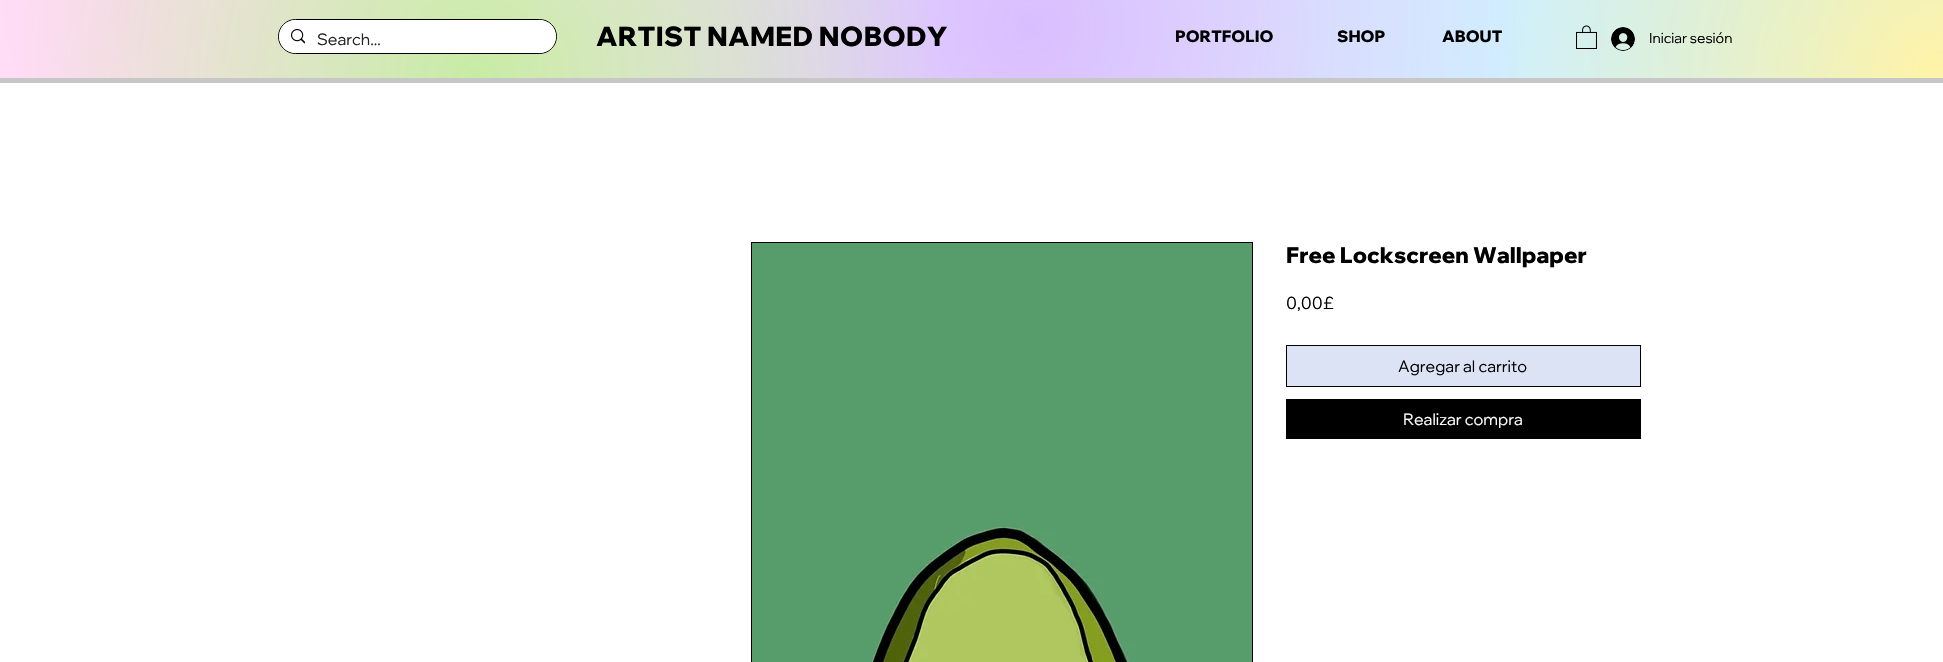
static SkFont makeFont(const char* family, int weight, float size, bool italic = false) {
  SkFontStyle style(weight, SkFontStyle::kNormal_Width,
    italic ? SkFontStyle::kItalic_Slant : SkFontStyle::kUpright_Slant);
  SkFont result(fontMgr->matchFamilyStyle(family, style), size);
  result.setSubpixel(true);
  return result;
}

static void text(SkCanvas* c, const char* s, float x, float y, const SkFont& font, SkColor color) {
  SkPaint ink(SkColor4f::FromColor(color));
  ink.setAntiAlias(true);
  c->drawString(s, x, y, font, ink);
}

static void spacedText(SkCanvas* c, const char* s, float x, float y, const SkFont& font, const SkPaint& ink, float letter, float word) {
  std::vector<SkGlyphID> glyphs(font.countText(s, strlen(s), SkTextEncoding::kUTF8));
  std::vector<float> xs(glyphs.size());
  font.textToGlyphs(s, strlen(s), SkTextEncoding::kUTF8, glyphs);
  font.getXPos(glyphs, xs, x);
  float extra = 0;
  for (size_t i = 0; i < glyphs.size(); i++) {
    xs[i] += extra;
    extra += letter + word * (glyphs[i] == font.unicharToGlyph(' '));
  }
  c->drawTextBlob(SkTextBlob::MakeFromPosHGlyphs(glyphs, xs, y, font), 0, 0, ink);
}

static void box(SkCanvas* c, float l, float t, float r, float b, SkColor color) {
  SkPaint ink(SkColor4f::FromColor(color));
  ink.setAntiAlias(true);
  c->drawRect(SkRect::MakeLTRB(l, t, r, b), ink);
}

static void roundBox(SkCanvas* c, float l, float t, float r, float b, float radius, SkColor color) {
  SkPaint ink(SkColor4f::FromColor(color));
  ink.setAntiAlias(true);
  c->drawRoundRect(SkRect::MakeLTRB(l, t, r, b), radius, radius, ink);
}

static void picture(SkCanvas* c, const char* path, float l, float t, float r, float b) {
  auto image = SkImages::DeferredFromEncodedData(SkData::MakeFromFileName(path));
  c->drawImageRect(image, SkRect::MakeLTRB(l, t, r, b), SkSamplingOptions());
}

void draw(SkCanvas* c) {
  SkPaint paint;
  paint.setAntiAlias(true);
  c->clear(0xffffffff);
  box(c, 0, 78, 1943, 83, 0xffc7c7c7);
  {
    const SkColor colors[] = {0xffc1ecfd, 0xffffffff};
    const float stops[] = {0, 0.7f};
    paint.setShader(SkGradientShader::MakeRadial({1819, 1.9f}, 1821, colors, stops, 2, SkTileMode::kClamp));
    paint.setAlpha(255);
  }
  c->drawRect(SkRect::MakeLTRB(596, 0, 1943, 78), paint);
  {
    const SkColor colors[] = {0xffffd9f5, 0x00ffd9f5};
    const float stops[] = {0, 0.7f};
    paint.setShader(SkGradientShader::MakeRadial({120, 10}, 1824, colors, stops, 2, SkTileMode::kClamp));
    paint.setAlpha(255);
  }
  c->drawRect(SkRect::MakeLTRB(0, 0, 1308, 78), paint);
  {
    const SkColor colors[] = {0xfcd8bdff, 0x00d8bdff};
    const float stops[] = {0, 0.5f};
    paint.setShader(SkGradientShader::MakeRadial({1030, 26}, 1031, colors, stops, 2, SkTileMode::kClamp));
    paint.setAlpha(255);
  }
  c->drawRect(SkRect::MakeLTRB(543, 0, 1517, 78), paint);
  {
    const SkColor colors[] = {0xfffff3a6, 0x00fff3a6};
    const float stops[] = {0, 0.23f};
    paint.setShader(SkGradientShader::MakeRadial({1943, 78}, 1945, colors, stops, 2, SkTileMode::kClamp));
    paint.setAlpha(255);
  }
  c->drawRect(SkRect::MakeLTRB(1509, 0, 1943, 78), paint);
  {
    const SkColor colors[] = {0xffc7eba4, 0x00c7eba4};
    const float stops[] = {0, 0.32f};
    paint.setShader(SkGradientShader::MakeRadial({476, 78}, 1469, colors, stops, 2, SkTileMode::kClamp));
    paint.setAlpha(255);
  }
  c->drawRect(SkRect::MakeLTRB(24, 0, 930, 78), paint);
  paint.setStyle(SkPaint::kStroke_Style);
  paint.setStrokeWidth(1);
  paint.setShader(nullptr);
  paint.setColor(0xff000000);
  c->drawRoundRect(SkRect::MakeLTRB(278.5f, 19.5f, 556.5f, 53.5f), 17, 17, paint);
  roundBox(c, 279, 20, 556, 53, 16.5f, 0xffffffff);
  picture(c, "img_01.png", 291, 29, 305, 44);
  SkFont face1 = makeFont("Wix Madefor Display", 400, 16);
  text(c, "Search...", 317, 45, face1, 0xff242323);
  SkFont face2 = makeFont("Wix Madefor Display", 800, 27);
  paint.setStyle(SkPaint::kFill_Style);
  spacedText(c, "ARTIST NAMED NOBODY", 596, 46, face2, paint, 0.25f, 0);
  SkFont face3 = makeFont("Wix Madefor Display", 800, 16);
  text(c, "PORTFOLIO", 1175, 42, face3, 0xff000000);
  text(c, "SHOP", 1337, 42, face3, 0xff000000);
  text(c, "ABOUT", 1442, 42, face3, 0xff000000);
  picture(c, "img_02.png", 1576, 25, 1597, 49);
  picture(c, "img_03.png", 1611, 27, 1635, 51);
  SkFont face4 = makeFont("Wix Madefor Display", 400, 14);
  text(c, "Iniciar sesión", 1649, 43, face4, 0xff000000);
  paint.setStyle(SkPaint::kStroke_Style);
  c->drawRect(SkRect::MakeLTRB(751.5f, 242.5f, 1252.5f, 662.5f), paint);
  picture(c, "img_04.png", 752, 243, 1252, 662);
  SkFont face5 = makeFont("Wix Madefor Display", 800, 22);
  text(c, "Free Lockscreen Wallpaper", 1286, 263, face5, 0xff000000);
  SkFont face6 = makeFont("Wix Madefor Display", 400, 17);
  text(c, "0,00£", 1286, 309, face6, 0xff000000);
  paint.setStyle(SkPaint::kFill_Style);
  paint.setColor(0xffdce3f5);
  c->drawRect(SkRect::MakeLTRB(1286.5f, 345.5f, 1640.5f, 386.5f), paint);
  paint.setStyle(SkPaint::kStroke_Style);
  paint.setColor(0xff000000);
  c->drawRect(SkRect::MakeLTRB(1286.5f, 345.5f, 1640.5f, 386.5f), paint);
  text(c, "Agregar al carrito", 1398, 372, face1, 0xff000000);
  box(c, 1286, 399, 1641, 439, 0xff000000);
  text(c, "Realizar compra", 1403, 425, face1, 0xffffffff);
}
